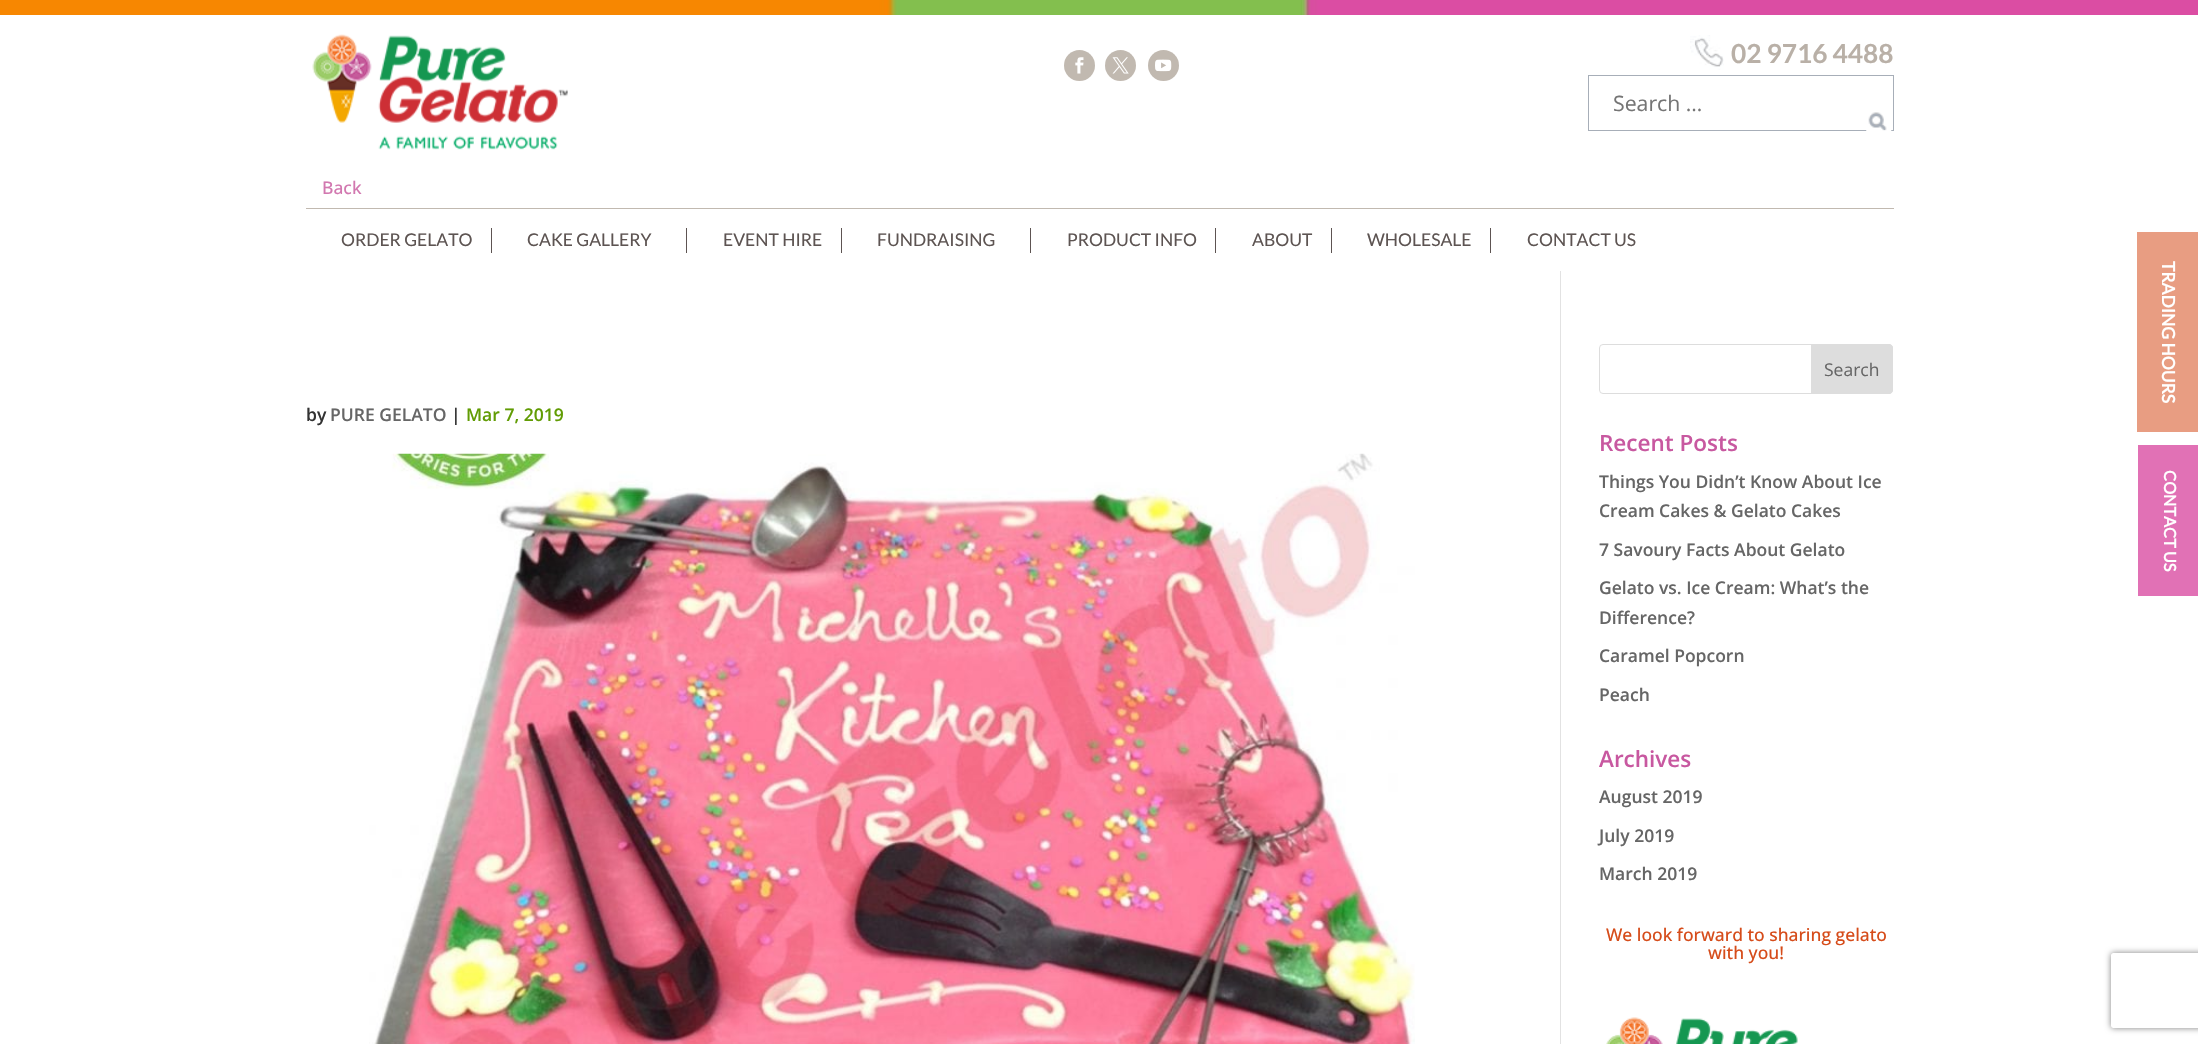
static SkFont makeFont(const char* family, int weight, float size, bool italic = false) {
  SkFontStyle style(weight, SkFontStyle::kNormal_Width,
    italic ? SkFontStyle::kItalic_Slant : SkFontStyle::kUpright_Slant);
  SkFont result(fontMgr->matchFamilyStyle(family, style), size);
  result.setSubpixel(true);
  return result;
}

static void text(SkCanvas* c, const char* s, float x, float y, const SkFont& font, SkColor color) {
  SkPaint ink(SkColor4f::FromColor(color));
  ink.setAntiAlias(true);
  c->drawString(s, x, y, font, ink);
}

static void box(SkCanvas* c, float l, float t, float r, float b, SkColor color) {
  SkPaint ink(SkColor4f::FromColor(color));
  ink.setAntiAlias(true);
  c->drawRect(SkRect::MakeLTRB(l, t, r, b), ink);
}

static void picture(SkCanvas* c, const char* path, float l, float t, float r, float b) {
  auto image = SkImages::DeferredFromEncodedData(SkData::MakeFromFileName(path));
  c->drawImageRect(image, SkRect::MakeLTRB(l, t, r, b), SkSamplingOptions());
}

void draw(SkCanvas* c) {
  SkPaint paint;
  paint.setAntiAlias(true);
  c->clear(0xffffffff);
  picture(c, "img_01.png", 0, 0, 2198, 15);
  paint.setColor(0xffc1b9b0);
  c->drawCircle(1079.5f, 65.5f, 15.5f, paint);
  picture(c, "img_02.png", 1075, 57, 1084, 74);
  c->drawCircle(1120.5f, 65.5f, 15.5f, paint);
  picture(c, "img_03.png", 1112, 57, 1129, 74);
  c->drawCircle(1163.5f, 65.5f, 15.5f, paint);
  picture(c, "img_04.png", 1155, 59, 1172, 72);
  picture(c, "img_05.png", 1690, 35, 1724, 70);
  SkFont face1 = makeFont("Lato", 700, 26.25f);
  text(c, "02 9716 4488", 1731, 63, face1, 0xffb9b0a7);
  paint.setStyle(SkPaint::kStroke_Style);
  paint.setStrokeWidth(1);
  paint.setColor(0xffa7aeb8);
  c->drawRect(SkRect::MakeLTRB(1588.5f, 75.5f, 1893.5f, 130.5f), paint);
  SkFont face2 = makeFont("Open Sans", 400, 21.25f);
  text(c, "Search …", 1613, 111, face2, 0xff757575);
  picture(c, "img_06.png", 1866, 112, 1892, 131);
  picture(c, "img_07.png", 312, 34, 568, 150);
  SkFont face3 = makeFont("Open Sans", 500, 17.5f);
  text(c, "Back", 322, 194, face3, 0xffd278b0);
  box(c, 306, 208, 1894, 209, 0xffc1b9b0);
  box(c, 491, 228, 492, 253, 0xff5d5452);
  SkFont face4 = makeFont("Lato", 400, 17.5f);
  text(c, "ORDER GELATO", 341, 246, face4, 0xff5d5452);
  box(c, 686, 228, 687, 253, 0xff5d5452);
  text(c, "CAKE GALLERY", 527, 246, face4, 0xff5d5452);
  box(c, 841, 228, 842, 253, 0xff5d5452);
  text(c, "EVENT HIRE", 723, 246, face4, 0xff5d5452);
  box(c, 1030, 228, 1031, 253, 0xff5d5452);
  text(c, "FUNDRAISING", 877, 246, face4, 0xff5d5452);
  box(c, 1215, 228, 1216, 253, 0xff5d5452);
  text(c, "PRODUCT INFO", 1067, 246, face4, 0xff5d5452);
  box(c, 1331, 228, 1332, 253, 0xff5d5452);
  text(c, "ABOUT", 1252, 246, face4, 0xff5d5452);
  box(c, 1490, 228, 1491, 253, 0xff5d5452);
  text(c, "WHOLESALE", 1367, 246, face4, 0xff5d5452);
  text(c, "CONTACT US", 1527, 246, face4, 0xff5d5452);
  box(c, 1560, 271, 1561, 1044, 0xffe2e2e2);
  SkFont face5 = makeFont("Open Sans", 600, 17.5f);
  text(c, "by", 306, 421, face5, 0xff333333);
  text(c, "PURE GELATO", 330, 421, face5, 0xff666666);
  text(c, "|", 451, 421, face5, 0xff333333);
  text(c, "Mar 7, 2019", 466, 421, face5, 0xff619c04);
  picture(c, "img_08.png", 369, 453, 1415, 1044);
  paint.setColor(0xffdddddd);
  c->drawRoundRect(SkRect::MakeLTRB(1599.5f, 344.5f, 1892.5f, 393.5f), 3.5f, 3.5f, paint);
  paint.setStyle(SkPaint::kFill_Style);
  c->drawPath(SkPathBuilder().moveTo(1811.5f, 344.5f).lineTo(1889, 344.5f).cubicTo(1891, 344.5f, 1892.5f, 346, 1892.5f, 348).lineTo(1892.5f, 390).cubicTo(1892.5f, 392, 1891, 393.5f, 1889, 393.5f).lineTo(1811.5f, 393.5f).close().detach(), paint);
  paint.setStyle(SkPaint::kStroke_Style);
  c->drawPath(SkPathBuilder().moveTo(1811.5f, 344.5f).lineTo(1889, 344.5f).cubicTo(1891, 344.5f, 1892.5f, 346, 1892.5f, 348).lineTo(1892.5f, 390).cubicTo(1892.5f, 392, 1891, 393.5f, 1889, 393.5f).lineTo(1811.5f, 393.5f).close().detach(), paint);
  SkFont face6 = makeFont("Open Sans", 400, 17.5f);
  text(c, "Search", 1824, 376, face6, 0xff666666);
  SkFont face7 = makeFont("Open Sans", 600, 22.5f);
  text(c, "Recent Posts", 1599, 451, face7, 0xffc858a0);
  text(c, "Things You Didn’t Know About Ice", 1599, 488, face5, 0xff666666);
  text(c, "Cream Cakes & Gelato Cakes", 1599, 517, face5, 0xff666666);
  text(c, "7 Savoury Facts About Gelato", 1599, 556, face5, 0xff666666);
  text(c, "Gelato vs. Ice Cream: What’s the", 1599, 594, face5, 0xff666666);
  text(c, "Difference?", 1599, 624, face5, 0xff666666);
  text(c, "Caramel Popcorn", 1599, 662, face5, 0xff666666);
  text(c, "Peach", 1599, 701, face5, 0xff666666);
  text(c, "Archives", 1599, 767, face7, 0xffc858a0);
  text(c, "August 2019", 1599, 803, face5, 0xff666666);
  text(c, "July 2019", 1599, 842, face5, 0xff666666);
  text(c, "March 2019", 1599, 880, face5, 0xff666666);
  text(c, "We look forward to sharing gelato", 1606, 941, face3, 0xffd64c1a);
  text(c, "with you!", 1708, 959, face3, 0xffd64c1a);
  picture(c, "img_09.png", 1606, 1017, 1798, 1044);
  box(c, 2137, 232, 2198, 432, 0xffe89d82);
  SkFont face8 = makeFont("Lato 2", 700, 17.5f);
  c->save();
  c->rotate(90, 2162, 261);
  text(c, "TRADING HOURS", 2162, 261, face8, 0xffffffff);
  c->restore();
  box(c, 2138, 445, 2198, 596, 0xffe171b5);
  SkFont face9 = makeFont("Lato 2", 700, 16.25f);
  c->save();
  c->rotate(90, 2164, 470);
  text(c, "CONTACT US", 2164, 470, face9, 0xffffffff);
  c->restore();
  c->save();
  c->clipPath(SkPathBuilder(SkPathFillType::kEvenOdd).moveTo(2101, 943).lineTo(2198, 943).lineTo(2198, 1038).lineTo(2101, 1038).close().moveTo(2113.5f, 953).lineTo(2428.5f, 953).cubicTo(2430, 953, 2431, 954, 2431, 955.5f).lineTo(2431, 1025.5f).cubicTo(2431, 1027, 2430, 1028, 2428.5f, 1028).lineTo(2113.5f, 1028).cubicTo(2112, 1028, 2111, 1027, 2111, 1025.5f).lineTo(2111, 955.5f).cubicTo(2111, 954, 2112, 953, 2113.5f, 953).close().detach(), true);
  paint.setStyle(SkPaint::kFill_Style);
  paint.setColor(0xff808080);
  paint.setMaskFilter(SkMaskFilter::MakeBlur(kNormal_SkBlurStyle, 3));
  c->drawRoundRect(SkRect::MakeLTRB(2111, 953, 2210, 1028), 2.5f, 2.5f, paint);
  paint.setMaskFilter(nullptr);
  c->restore();
}
